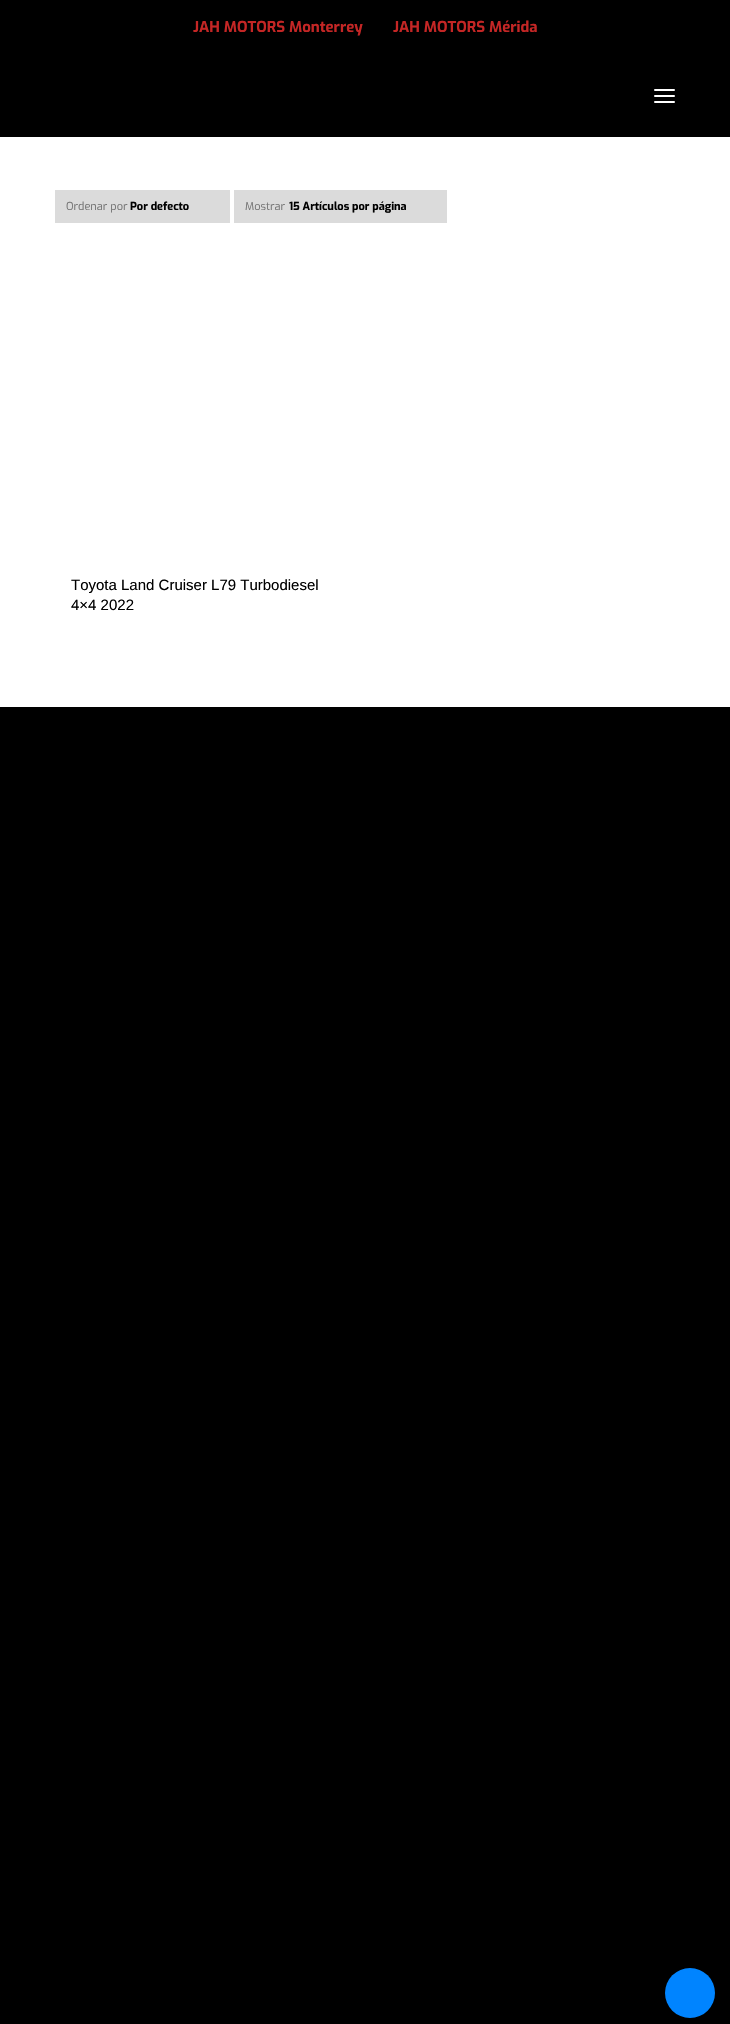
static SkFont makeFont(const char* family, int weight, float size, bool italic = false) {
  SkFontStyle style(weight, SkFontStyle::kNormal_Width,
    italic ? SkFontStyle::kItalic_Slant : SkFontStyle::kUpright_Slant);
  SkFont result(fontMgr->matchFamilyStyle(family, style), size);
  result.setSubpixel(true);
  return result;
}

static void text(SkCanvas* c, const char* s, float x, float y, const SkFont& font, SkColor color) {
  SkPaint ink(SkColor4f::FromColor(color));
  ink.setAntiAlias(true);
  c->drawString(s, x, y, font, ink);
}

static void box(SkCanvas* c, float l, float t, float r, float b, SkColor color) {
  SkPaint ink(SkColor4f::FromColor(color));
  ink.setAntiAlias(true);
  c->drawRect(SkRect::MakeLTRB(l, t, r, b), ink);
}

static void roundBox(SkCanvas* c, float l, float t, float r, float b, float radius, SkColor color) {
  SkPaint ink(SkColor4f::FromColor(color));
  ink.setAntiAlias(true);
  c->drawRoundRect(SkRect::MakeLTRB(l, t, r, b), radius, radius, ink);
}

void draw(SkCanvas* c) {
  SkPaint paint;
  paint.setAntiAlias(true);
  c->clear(0xff000000);
  SkFont face1 = makeFont("Exo", 700, 15);
  text(c, "JAH MOTORS Monterrey", 193, 32, face1, 0xffc42625);
  text(c, "JAH MOTORS Mérida", 393, 32, face1, 0xffc42625);
  roundBox(c, 654, 95, 675, 97, 1, 0xffffffff);
  roundBox(c, 654, 89, 675, 91, 1, 0xffffffff);
  roundBox(c, 654, 101, 675, 103, 1, 0xffffffff);
  box(c, 0, 137, 730, 707, 0xffffffff);
  box(c, 55, 190, 230, 223, 0xffdbdbdb);
  SkFont face2 = makeFont("Exo", 400, 11);
  text(c, "Ordenar por", 66, 210, face2, 0xff737373);
  SkFont face3 = makeFont("Exo", 700, 11);
  text(c, "Por defecto", 130, 210, face3, 0xff000000);
  box(c, 234, 190, 447, 223, 0xffdbdbdb);
  text(c, "Mostrar", 245, 210, face2, 0xff737373);
  text(c, "15 Artículos por página", 289, 210, face3, 0xff000000);
  SkFont face4 = makeFont("Liberation Sans", 400, 15);
  text(c, "Toyota Land Cruiser L79 Turbodiesel", 71, 590, face4, 0xff000000);
  text(c, "4×4 2022", 71, 610, face4, 0xff000000);
  paint.setColor(0xff0084ff);
  c->drawCircle(690, 1993, 25, paint);
}
